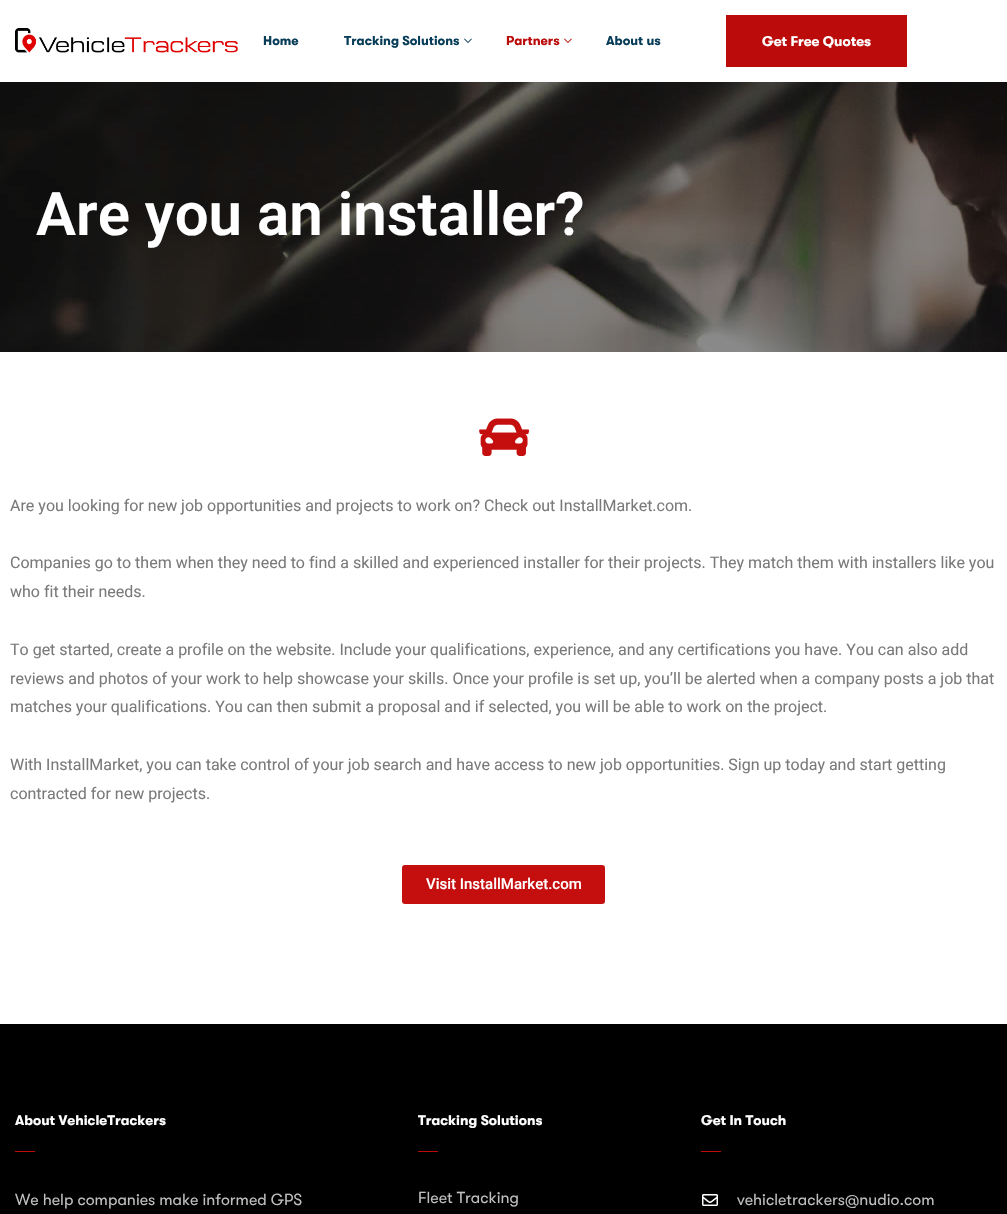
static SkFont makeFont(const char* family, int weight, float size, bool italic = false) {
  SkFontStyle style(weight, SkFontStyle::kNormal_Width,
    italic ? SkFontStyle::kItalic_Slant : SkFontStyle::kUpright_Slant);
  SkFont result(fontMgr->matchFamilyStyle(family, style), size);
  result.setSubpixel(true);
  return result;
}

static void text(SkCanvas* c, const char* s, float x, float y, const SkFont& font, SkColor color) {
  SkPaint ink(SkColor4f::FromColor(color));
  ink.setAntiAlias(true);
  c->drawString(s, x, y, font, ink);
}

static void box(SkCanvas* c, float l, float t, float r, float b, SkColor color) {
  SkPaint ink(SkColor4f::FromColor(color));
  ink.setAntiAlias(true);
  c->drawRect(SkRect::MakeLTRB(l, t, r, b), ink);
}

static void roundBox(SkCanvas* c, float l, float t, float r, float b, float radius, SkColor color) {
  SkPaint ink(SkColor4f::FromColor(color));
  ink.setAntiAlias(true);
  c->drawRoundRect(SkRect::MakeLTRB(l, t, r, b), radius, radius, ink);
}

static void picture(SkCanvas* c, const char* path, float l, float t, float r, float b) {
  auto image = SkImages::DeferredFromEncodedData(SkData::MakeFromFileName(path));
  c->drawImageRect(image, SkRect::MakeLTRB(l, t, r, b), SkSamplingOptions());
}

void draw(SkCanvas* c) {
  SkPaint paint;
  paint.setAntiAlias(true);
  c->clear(0xffffffff);
  picture(c, "img_01.png", 15, 28, 238, 53);
  SkFont face1 = makeFont("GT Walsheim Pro", 700, 13);
  text(c, "Home", 263, 45, face1, 0xff083d59);
  text(c, "Tracking Solutions", 344, 45, face1, 0xff083d59);
  picture(c, "img_02.png", 464, 38, 472, 43);
  text(c, "Partners", 506, 45, face1, 0xffbb0b0b);
  picture(c, "img_03.png", 564, 38, 572, 43);
  text(c, "About us", 606, 45, face1, 0xff083d59);
  box(c, 726, 15, 907, 67, 0xffbb0b0b);
  SkFont face2 = makeFont("GT Walsheim Pro", 700, 14);
  text(c, "Get Free Quotes", 762, 46, face2, 0xffffffff);
  picture(c, "img_04.png", 0, 82, 1007, 352);
  SkFont face3 = makeFont("Roboto", 600, 60);
  text(c, "Are you an installer?", 36, 235, face3, 0xffffffff);
  picture(c, "img_05.png", 479, 418, 530, 456);
  SkFont face4 = makeFont("Roboto", 400, 16);
  text(c, "Are you looking for new job opportunities and projects to work on? Check out InstallMarket.com.", 10, 511, face4, 0xff7a7a7a);
  text(c, "Companies go to them when they need to find a skilled and experienced installer for their projects. They match them with installers like you", 10, 568, face4, 0xff7a7a7a);
  text(c, "who fit their needs.", 10, 597, face4, 0xff7a7a7a);
  text(c, "To get started, create a profile on the website. Include your qualifications, experience, and any certifications you have. You can also add", 10, 655, face4, 0xff7a7a7a);
  text(c, "reviews and photos of your work to help showcase your skills. Once your profile is set up, you’ll be alerted when a company posts a job that", 10, 684, face4, 0xff7a7a7a);
  text(c, "matches your qualifications. You can then submit a proposal and if selected, you will be able to work on the project.", 10, 712, face4, 0xff7a7a7a);
  text(c, "With InstallMarket, you can take control of your job search and have access to new job opportunities. Sign up today and start getting", 10, 770, face4, 0xff7a7a7a);
  text(c, "contracted for new projects.", 10, 799, face4, 0xff7a7a7a);
  roundBox(c, 402, 865, 605, 904, 3, 0xffc50e0e);
  SkFont face5 = makeFont("Roboto", 500, 15);
  text(c, "Visit InstallMarket.com", 426, 889, face5, 0xffffffff);
  box(c, 0, 1024, 1007, 1214, 0xff000000);
  text(c, "About VehicleTrackers", 15, 1125, face2, 0xffffffff);
  box(c, 15, 1151, 35, 1152, 0xffbb0b0b);
  SkFont face6 = makeFont("GT Walsheim Pro", 400, 16);
  text(c, "We help companies make informed GPS", 15, 1205, face6, 0xffbfbfbf);
  text(c, "Tracking Solutions", 418, 1125, face2, 0xffffffff);
  box(c, 418, 1151, 438, 1152, 0xffbb0b0b);
  text(c, "Fleet Tracking", 418, 1203, face6, 0xffbfbfbf);
  text(c, "Get In Touch", 701, 1125, face2, 0xffffffff);
  box(c, 701, 1151, 721, 1152, 0xffbb0b0b);
  picture(c, "img_06.png", 702, 1194, 718, 1206);
  text(c, "vehicletrackers@nudio.com", 737, 1205, face6, 0xffbfbfbf);
}
